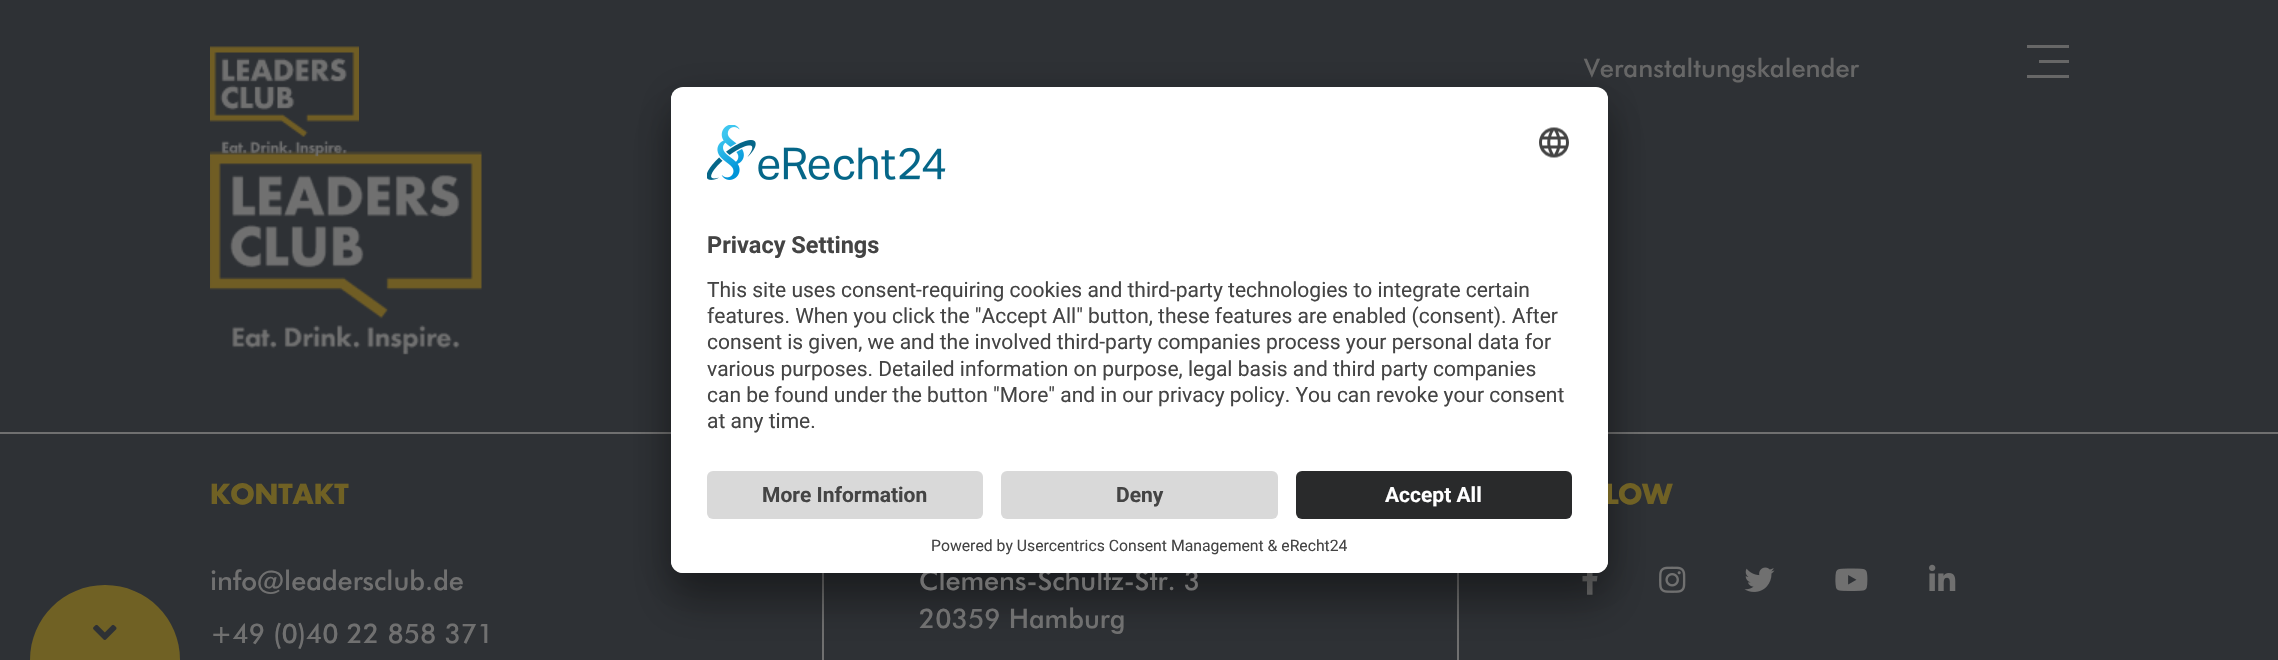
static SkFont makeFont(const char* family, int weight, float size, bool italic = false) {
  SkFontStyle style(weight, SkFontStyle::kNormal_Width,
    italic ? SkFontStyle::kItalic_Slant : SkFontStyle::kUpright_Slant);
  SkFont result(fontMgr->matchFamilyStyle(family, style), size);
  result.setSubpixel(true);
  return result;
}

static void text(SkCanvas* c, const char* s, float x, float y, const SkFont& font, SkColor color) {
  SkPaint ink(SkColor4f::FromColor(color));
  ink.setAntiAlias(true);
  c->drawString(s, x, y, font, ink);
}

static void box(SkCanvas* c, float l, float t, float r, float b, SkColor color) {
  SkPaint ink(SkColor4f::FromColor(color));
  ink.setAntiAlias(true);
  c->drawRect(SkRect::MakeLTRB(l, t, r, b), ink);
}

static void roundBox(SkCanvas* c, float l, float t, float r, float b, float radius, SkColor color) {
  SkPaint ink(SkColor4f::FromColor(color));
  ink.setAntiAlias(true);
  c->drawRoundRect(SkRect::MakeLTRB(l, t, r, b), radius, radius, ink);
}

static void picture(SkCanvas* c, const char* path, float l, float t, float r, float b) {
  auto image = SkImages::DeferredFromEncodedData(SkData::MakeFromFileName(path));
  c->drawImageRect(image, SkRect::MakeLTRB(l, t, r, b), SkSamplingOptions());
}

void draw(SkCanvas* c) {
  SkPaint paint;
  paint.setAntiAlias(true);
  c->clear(0xff2e3135);
  picture(c, "img_05.png", 210, 151, 482, 355);
  picture(c, "img_01.png", 210, 46, 359, 157);
  SkFont face1 = makeFont("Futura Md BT", 500, 25.5f);
  text(c, "Veranstaltungskalender", 1584, 77, face1, 0xff676767);
  box(c, 2027, 45, 2069, 48, 0xff676767);
  box(c, 2039, 60, 2069, 63, 0xff676767);
  box(c, 2027, 75, 2069, 78, 0xff676767);
  box(c, 0, 432, 2278, 434, 0xff707070);
  box(c, 1457, 573, 1459, 660, 0xff707070);
  picture(c, "img_06.png", 1582, 573, 1598, 595);
  picture(c, "img_07.png", 1659, 566, 1686, 593);
  box(c, 822, 573, 824, 660, 0xff707070);
  paint.setColor(0x4d000000);
  paint.setMaskFilter(SkMaskFilter::MakeBlur(kNormal_SkBlurStyle, 21));
  c->drawRoundRect(SkRect::MakeLTRB(671, 117, 1608, 603), 12, 12, paint);
  paint.setMaskFilter(nullptr);
  paint.setColor(0x38000000);
  paint.setMaskFilter(SkMaskFilter::MakeBlur(kNormal_SkBlurStyle, 19.5f));
  c->drawRoundRect(SkRect::MakeLTRB(671, 95, 1608, 581), 12, 12, paint);
  paint.setMaskFilter(nullptr);
  SkFont face2 = makeFont("Futura", 700, 27);
  text(c, "LOW", 1605, 504, face2, 0xff706124);
  SkFont face3 = makeFont("Futura Md BT", 500, 27);
  text(c, "Clemens-Schultz-Str. 3", 919, 590, face3, 0xff707070);
  roundBox(c, 671, 87, 1608, 573, 12, 0xffffffff);
  c->save();
  c->clipPath(SkPathBuilder().moveTo(683, 87).lineTo(1596, 87).cubicTo(1602.5f, 87, 1608, 92.5f, 1608, 99).lineTo(1608, 561).cubicTo(1608, 567.5f, 1602.5f, 573, 1596, 573).lineTo(683, 573).cubicTo(676.5f, 573, 671, 567.5f, 671, 561).lineTo(671, 99).cubicTo(671, 92.5f, 676.5f, 87, 683, 87).close().detach(), true);
  c->clipPath(SkPathBuilder().moveTo(683, 87).lineTo(1596, 87).cubicTo(1602.5f, 87, 1608, 92.5f, 1608, 99).lineTo(1608, 459).lineTo(671, 459).lineTo(671, 99).cubicTo(671, 92.5f, 676.5f, 87, 683, 87).close().detach(), true);
  box(c, 671, 89, 1608, 459, 0xffffffff);
  c->restore();
  picture(c, "img_02.png", 707, 125, 946, 180);
  picture(c, "img_03.png", 1539, 127, 1569, 158);
  SkFont face4 = makeFont("Roboto", 700, 23.5f);
  text(c, "Privacy Settings", 707, 253, face4, 0xff444444);
  SkFont face5 = makeFont("Roboto", 400, 21);
  text(c, "This site uses consent-requiring cookies and third-party technologies to integrate certain", 707, 297, face5, 0xff444444);
  text(c, "features. When you click the \"Accept All\" button, these features are enabled (consent). After", 707, 323, face5, 0xff444444);
  text(c, "consent is given, we and the involved third-party companies process your personal data for", 707, 349, face5, 0xff444444);
  text(c, "various purposes. Detailed information on purpose, legal basis and third party companies", 707, 376, face5, 0xff444444);
  text(c, "can be found under the button \"More\" and in our privacy policy. You can revoke your consent", 707, 402, face5, 0xff444444);
  text(c, "at any time.", 707, 428, face5, 0xff444444);
  paint.setColor(0xffffffff);
  c->drawPath(SkPathBuilder().moveTo(671, 459).lineTo(1608, 459).lineTo(1608, 561).cubicTo(1608, 567.5f, 1602.5f, 573, 1596, 573).lineTo(683, 573).cubicTo(676.5f, 573, 671, 567.5f, 671, 561).close().detach(), paint);
  roundBox(c, 707, 471, 983, 519, 6, 0xffd9d9d9);
  SkFont face6 = makeFont("Roboto", 700, 21);
  text(c, "More Information", 762, 502, face6, 0xff444444);
  roundBox(c, 1001, 471, 1278, 519, 6, 0xffd9d9d9);
  text(c, "Deny", 1116, 502, face6, 0xff444444);
  roundBox(c, 1296, 471, 1572, 519, 6, 0xff292a2b);
  text(c, "Accept All", 1385, 502, face6, 0xffffffff);
  SkFont face7 = makeFont("Roboto", 400, 15.75f);
  text(c, "Powered by Usercentrics Consent Management & eRecht24", 931, 551, face7, 0xff444444);
  paint.setColor(0xff706124);
  c->drawPath(SkPathBuilder().moveTo(105, 585).cubicTo(146.5f, 585, 180, 618.5f, 180, 660).lineTo(30, 660).cubicTo(30, 618.5f, 63.5f, 585, 105, 585).close().detach(), paint);
  picture(c, "img_04.png", 93, 624, 117, 640);
  text(c, "KONTAKT", 210, 504, face2, 0xff706124);
  text(c, "info@leadersclub.de", 210, 590, face3, 0xff707070);
  text(c, "+49 (0)40 22 858 371", 210, 643, face3, 0xff707070);
  picture(c, "img_08.png", 1744, 567, 1775, 592);
  picture(c, "img_09.png", 1835, 568, 1868, 591);
  picture(c, "img_10.png", 1929, 564, 1956, 591);
  text(c, "20359 Hamburg", 919, 628, face3, 0xff707070);
}
